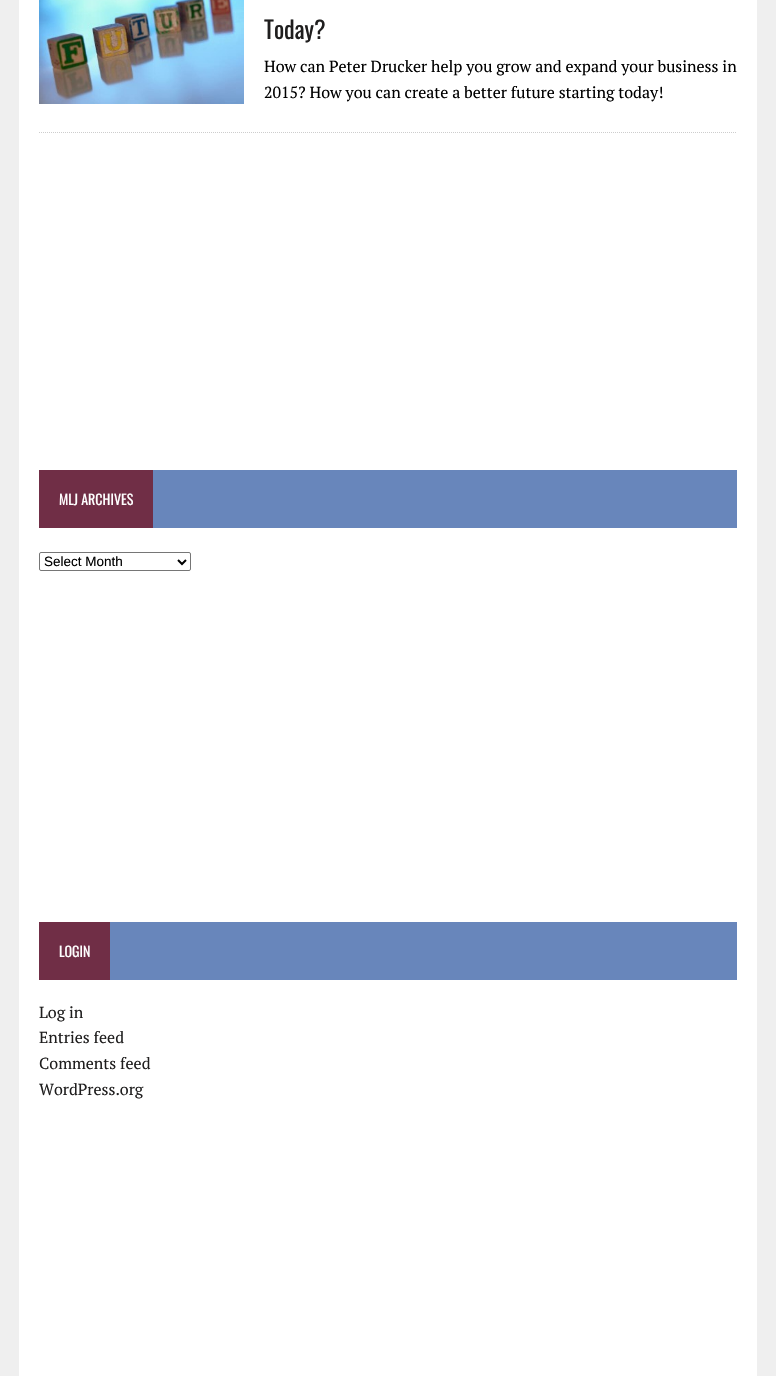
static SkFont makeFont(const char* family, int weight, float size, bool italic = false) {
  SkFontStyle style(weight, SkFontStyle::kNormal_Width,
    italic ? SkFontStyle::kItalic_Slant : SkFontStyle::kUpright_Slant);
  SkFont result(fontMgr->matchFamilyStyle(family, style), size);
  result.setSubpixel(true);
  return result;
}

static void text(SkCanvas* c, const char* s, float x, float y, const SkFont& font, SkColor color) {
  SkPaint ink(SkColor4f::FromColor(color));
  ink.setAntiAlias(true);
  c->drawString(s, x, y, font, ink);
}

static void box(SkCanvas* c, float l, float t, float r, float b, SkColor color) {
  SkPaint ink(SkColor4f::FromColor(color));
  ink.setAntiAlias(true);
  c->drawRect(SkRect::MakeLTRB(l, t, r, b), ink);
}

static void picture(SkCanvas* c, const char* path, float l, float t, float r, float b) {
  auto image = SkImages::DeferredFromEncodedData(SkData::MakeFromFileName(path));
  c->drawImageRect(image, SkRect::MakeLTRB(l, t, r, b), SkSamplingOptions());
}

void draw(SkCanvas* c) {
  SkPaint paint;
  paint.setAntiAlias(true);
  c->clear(0xffefefef);
  box(c, 19, 0, 757, 1376, 0xffffffff);
  picture(c, "img_01.png", 39, 0, 244, 104);
  SkFont face1 = makeFont("Oswald", 400, 24);
  text(c, "Today?", 264, 39, face1, 0xff1f1e1e);
  SkFont face2 = makeFont("PT Serif", 400, 16);
  text(c, "How can Peter Drucker help you grow and expand your business in", 264, 72, face2, 0xff000000);
  text(c, "2015? How you can create a better future starting today!", 264, 98, face2, 0xff000000);
  paint.setStyle(SkPaint::kStroke_Style);
  paint.setStrokeWidth(1);
  paint.setColor(0xffcdcdcd);
  paint.setPathEffect(SkDashPathEffect::Make({{1, 1}}, 0));
  c->drawPath(SkPathBuilder().moveTo(39, 132.5f).lineTo(737, 132.5f).detach(), paint);
  paint.setPathEffect(nullptr);
  box(c, 153, 470, 737, 528, 0xff6886bb);
  box(c, 39, 470, 153, 528, 0xff702e46);
  SkFont face3 = makeFont("Oswald", 400, 14);
  text(c, "MLJ ARCHIVES", 59, 505, face3, 0xffffffff);
  paint.setColor(0xff767676);
  c->drawRoundRect(SkRect::MakeLTRB(39.5f, 552.5f, 190.5f, 570.5f), 1.5f, 1.5f, paint);
  paint.setStrokeWidth(2);
  paint.setColor(0xff000000);
  c->drawPath(SkPathBuilder().moveTo(178, 560).lineTo(182, 564).lineTo(186, 560).detach(), paint);
  SkFont face4 = makeFont("Liberation Sans", 400, 13.5f);
  text(c, "Select Month", 44, 566, face4, 0xff000000);
  box(c, 110, 922, 737, 980, 0xff6886bb);
  box(c, 39, 922, 110, 980, 0xff702e46);
  text(c, "LOGIN", 59, 957, face3, 0xffffffff);
  text(c, "Log in", 39, 1018, face2, 0xff1f1e1e);
  text(c, "Entries feed", 39, 1043, face2, 0xff1f1e1e);
  text(c, "Comments feed", 39, 1069, face2, 0xff1f1e1e);
  text(c, "WordPress.org", 39, 1095, face2, 0xff1f1e1e);
}
